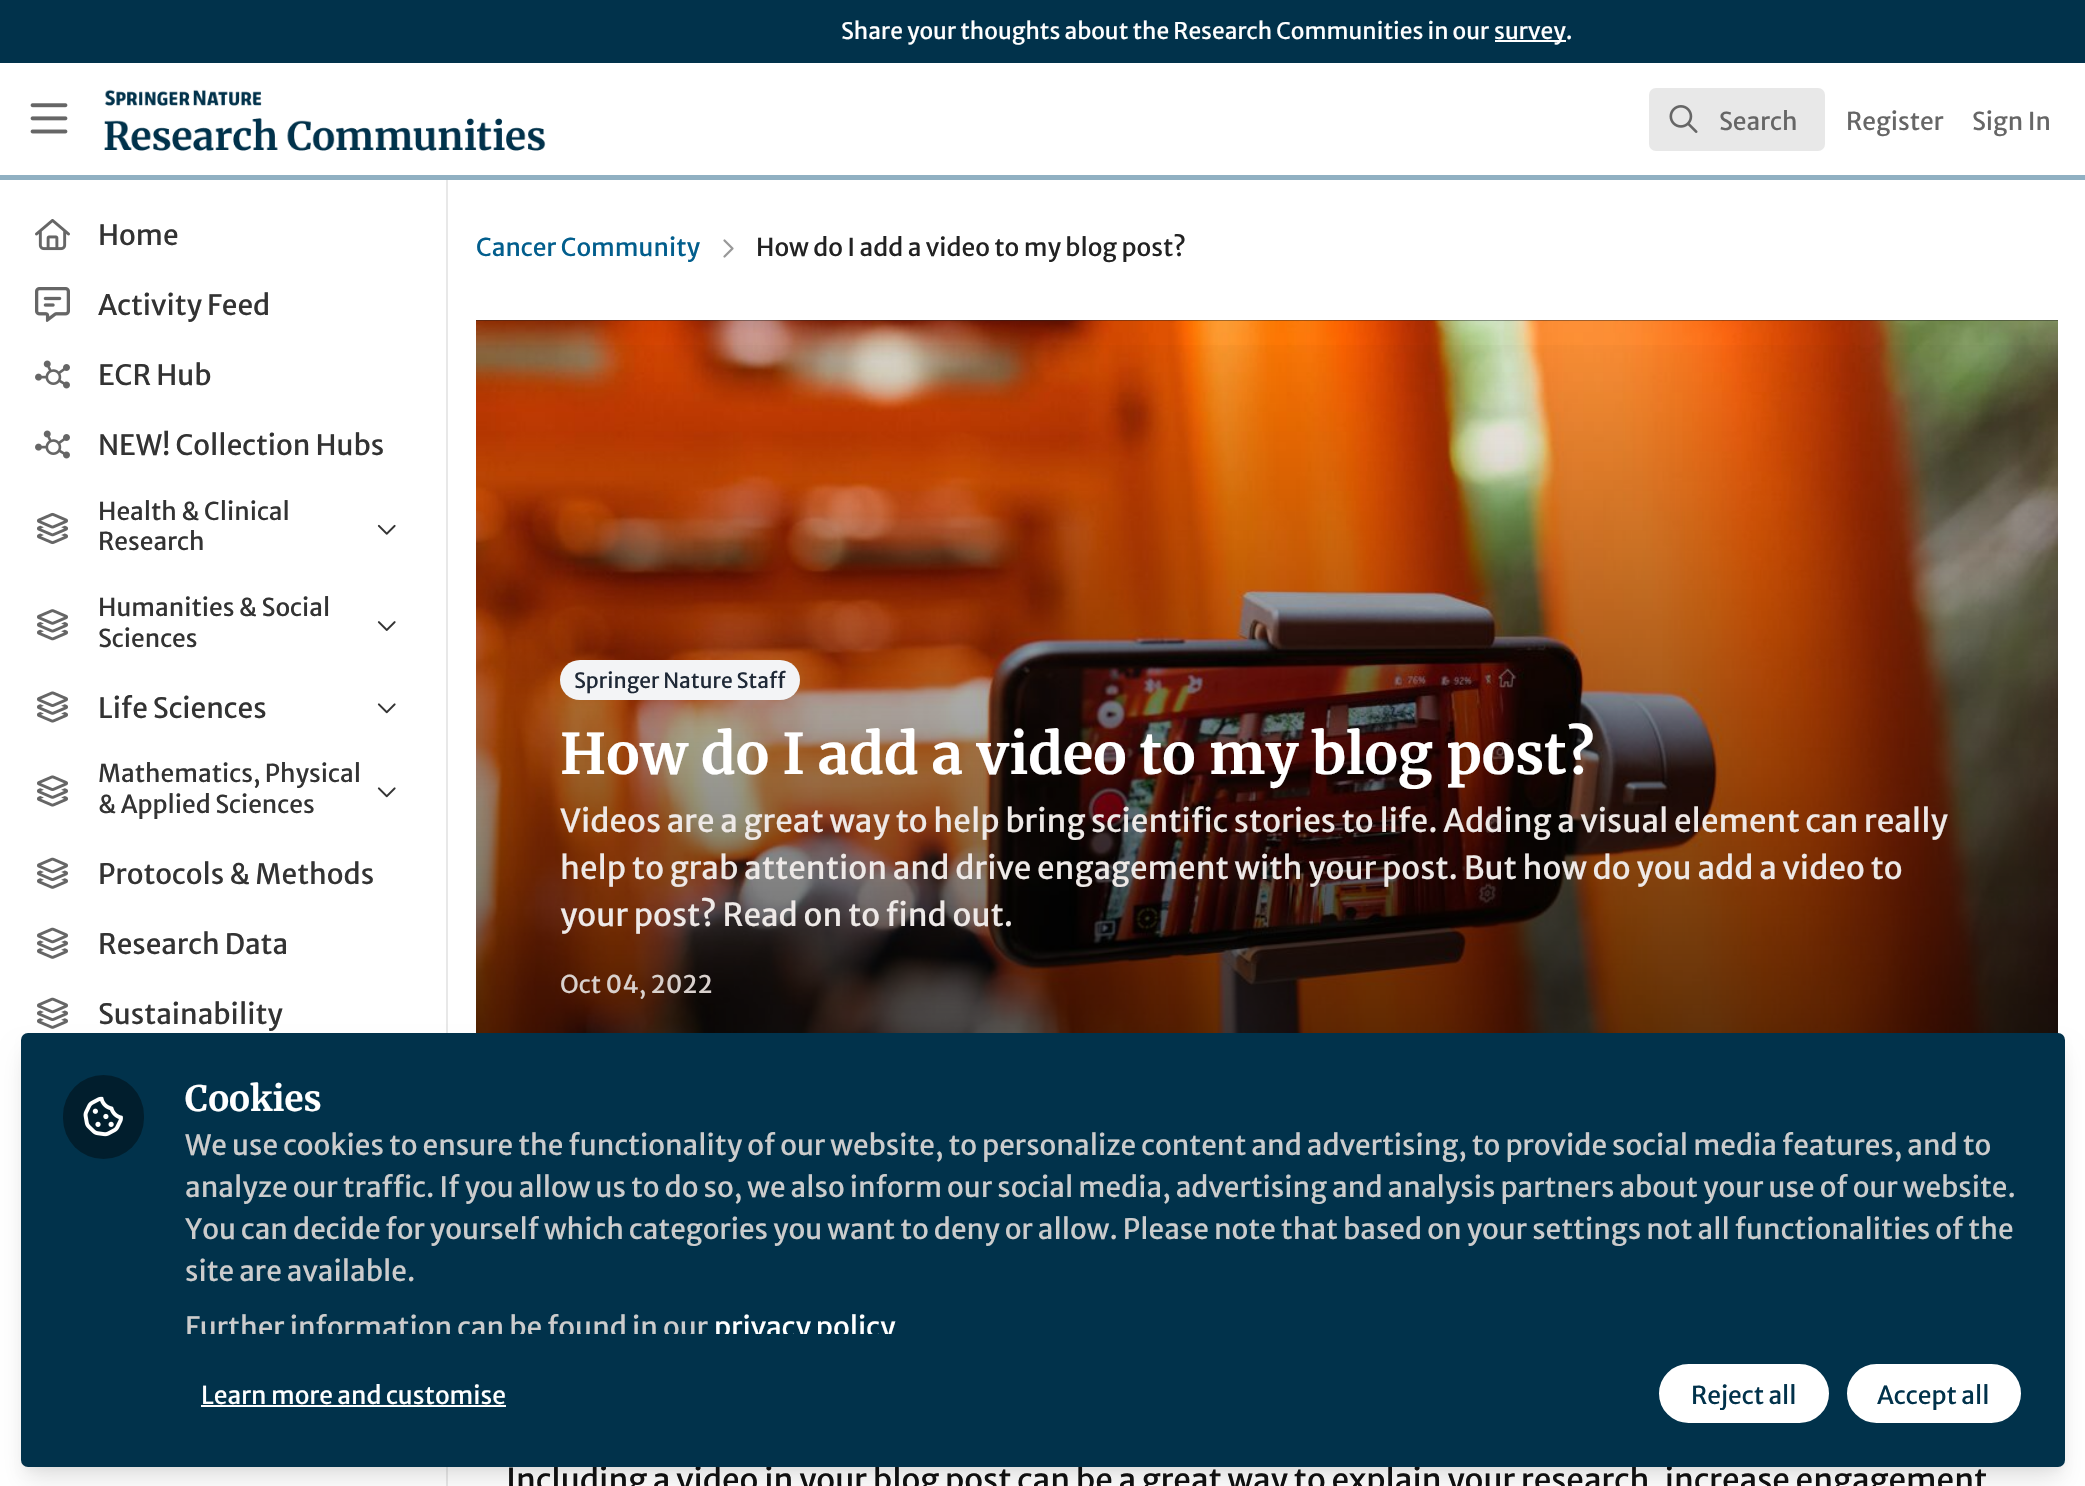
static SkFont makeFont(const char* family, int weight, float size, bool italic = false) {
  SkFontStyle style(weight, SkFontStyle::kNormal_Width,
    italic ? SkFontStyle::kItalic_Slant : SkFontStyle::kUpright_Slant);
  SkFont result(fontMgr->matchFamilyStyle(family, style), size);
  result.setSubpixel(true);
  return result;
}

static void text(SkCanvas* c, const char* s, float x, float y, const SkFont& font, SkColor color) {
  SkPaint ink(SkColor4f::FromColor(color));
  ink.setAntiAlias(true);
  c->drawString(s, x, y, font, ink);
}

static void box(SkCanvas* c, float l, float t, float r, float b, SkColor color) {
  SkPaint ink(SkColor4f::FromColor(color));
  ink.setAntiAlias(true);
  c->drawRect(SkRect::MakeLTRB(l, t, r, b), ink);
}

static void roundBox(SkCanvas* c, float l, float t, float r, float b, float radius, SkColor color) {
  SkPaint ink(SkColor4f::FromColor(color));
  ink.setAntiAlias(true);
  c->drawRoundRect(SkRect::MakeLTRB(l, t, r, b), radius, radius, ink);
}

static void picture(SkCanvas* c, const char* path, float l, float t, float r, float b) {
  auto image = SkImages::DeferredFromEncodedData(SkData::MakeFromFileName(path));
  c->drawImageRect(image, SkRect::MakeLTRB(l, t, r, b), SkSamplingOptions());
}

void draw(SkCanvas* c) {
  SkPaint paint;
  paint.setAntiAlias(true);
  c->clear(0xffffffff);
  box(c, 0, 0, 2085, 63, 0xff01324b);
  SkFont face1 = makeFont("Merriweather Sans", 400, 22.75f);
  text(c, "Share your thoughts about the Research Communities in our", 841, 39, face1, 0xffffffff);
  box(c, 1495, 40, 1566, 42, 0xffffffff);
  text(c, "survey.", 1494, 39, face1, 0xffffffff);
  box(c, 446, 175, 448, 1486, 0xffe8e8e8);
  box(c, 0, 175, 2085, 180, 0xff90b0c2);
  picture(c, "img_01.png", 30, 103, 68, 134);
  picture(c, "img_02.png", 104, 89, 546, 151);
  roundBox(c, 1649, 88, 1825, 151, 7, 0xffe8e8e8);
  picture(c, "img_03.png", 1669, 105, 1698, 133);
  SkFont face2 = makeFont("Merriweather Sans", 400, 24.5f);
  text(c, "Search", 1719, 130, face2, 0xff666666);
  text(c, "Register", 1846, 130, face2, 0xff666666);
  text(c, "Sign In", 1972, 130, face2, 0xff666666);
  picture(c, "img_04.png", 35, 219, 70, 251);
  SkFont face3 = makeFont("Merriweather Sans", 400, 28);
  text(c, "Home", 98, 245, face3, 0xff333333);
  picture(c, "img_05.png", 35, 287, 70, 322);
  text(c, "Activity Feed", 98, 315, face3, 0xff333333);
  picture(c, "img_06.png", 35, 360, 70, 389);
  text(c, "ECR Hub", 98, 385, face3, 0xff333333);
  picture(c, "img_06.png", 35, 430, 70, 459);
  text(c, "NEW! Collection Hubs", 98, 455, face3, 0xff333333);
  picture(c, "img_07.png", 37, 512, 68, 545);
  text(c, "Health & Clinical", 98, 520, face2, 0xff333333);
  text(c, "Research", 98, 550, face2, 0xff333333);
  picture(c, "img_08.png", 377, 524, 396, 535);
  picture(c, "img_09.png", 37, 609, 68, 641);
  text(c, "Humanities & Social", 98, 616, face2, 0xff333333);
  text(c, "Sciences", 98, 647, face2, 0xff333333);
  picture(c, "img_10.png", 377, 621, 396, 631);
  picture(c, "img_11.png", 37, 691, 68, 723);
  text(c, "Life Sciences", 98, 718, face3, 0xff333333);
  picture(c, "img_12.png", 377, 703, 396, 714);
  picture(c, "img_11.png", 37, 775, 68, 807);
  text(c, "Mathematics, Physical", 98, 782, face2, 0xff333333);
  text(c, "& Applied Sciences", 98, 813, face2, 0xff333333);
  picture(c, "img_12.png", 377, 787, 396, 798);
  picture(c, "img_13.png", 37, 857, 68, 889);
  text(c, "Protocols & Methods", 98, 884, face3, 0xff333333);
  picture(c, "img_13.png", 37, 927, 68, 959);
  text(c, "Research Data", 98, 954, face3, 0xff333333);
  picture(c, "img_13.png", 37, 997, 68, 1029);
  text(c, "Sustainability", 98, 1024, face3, 0xff333333);
  text(c, "Cancer Community", 476, 256, face2, 0xff025e8d);
  paint.setStyle(SkPaint::kStroke_Style);
  paint.setStrokeWidth(2.3f);
  paint.setStrokeCap(SkPaint::kRound_Cap);
  paint.setStrokeJoin(SkPaint::kRound_Join);
  paint.setColor(0xff999999);
  c->drawPath(SkPathBuilder().moveTo(724.5f, 240.5f).lineTo(732.5f, 248.5f).lineTo(724.5f, 256.5f).detach(), paint);
  text(c, "How do I add a video to my blog post?", 756, 256, face2, 0xff222222);
  box(c, 476, 320, 2058, 321, 0xff222222);
  picture(c, "img_14.png", 476, 320, 2058, 1033);
  paint.setStyle(SkPaint::kFill_Style);
  {
    const SkColor colors[] = {0x00000000, 0xcc000000};
    const float stops[] = {0, 1};
    const SkPoint ends[] = {{1267, 320}, {1267, 1241}};
    paint.setShader(SkGradientShader::MakeLinear(ends, colors, stops, 2, SkTileMode::kClamp));
    paint.setAlpha(255);
  }
  c->drawRect(SkRect::MakeLTRB(476, 345, 2058, 1033), paint);
  roundBox(c, 560, 660, 800, 700, 20, 0xfff3f4f6);
  SkFont face4 = makeFont("Merriweather Sans", 400, 21);
  text(c, "Springer Nature Staff", 574, 688, face4, 0xff1f2937);
  SkFont face5 = makeFont("Merriweather", 700, 56);
  text(c, "How do I add a video to my blog post?", 560, 774, face5, 0xffffffff);
  SkFont face6 = makeFont("Merriweather Sans", 400, 31.5f);
  text(c, "Videos are a great way to help bring scientific stories to life. Adding a visual element can really", 560, 832, face6, 0xffeee9e7);
  text(c, "help to grab attention and drive engagement with your post. But how do you add a video to", 560, 879, face6, 0xffeee9e7);
  text(c, "your post? Read on to find out.", 560, 926, face6, 0xffeee9e7);
  text(c, "Oct 04, 2022", 560, 993, face2, 0xffd9d1cd);
  text(c, "Including a video in your blog post can be a great way to explain your research, increase engagement", 506, 1491, face6, 0xff111111);
  paint.setShader(nullptr);
  paint.setColor(0x0d000000);
  paint.setMaskFilter(SkMaskFilter::MakeBlur(kNormal_SkBlurStyle, 5));
  c->drawRoundRect(SkRect::MakeLTRB(25, 1043, 2062, 1470), 4, 4, paint);
  paint.setMaskFilter(nullptr);
  paint.setColor(0x1a000000);
  paint.setMaskFilter(SkMaskFilter::MakeBlur(kNormal_SkBlurStyle, 13));
  c->drawRoundRect(SkRect::MakeLTRB(26, 1055, 2060, 1479), 2, 2, paint);
  paint.setMaskFilter(nullptr);
  roundBox(c, 21, 1033, 2065, 1467, 7, 0xff01324b);
  roundBox(c, 63, 1075, 144, 1159, 40.5f, 0xff011e2d);
  picture(c, "img_15.png", 83, 1096, 123, 1137);
  SkFont face7 = makeFont("Merriweather", 700, 35);
  text(c, "Cookies", 185, 1111, face7, 0xffffffff);
  text(c, "We use cookies to ensure the functionality of our website, to personalize content and advertising, to provide social media features, and to", 185, 1155, face3, 0xffcccccc);
  text(c, "analyze our traffic. If you allow us to do so, we also inform our social media, advertising and analysis partners about your use of our website.", 185, 1197, face3, 0xffcccccc);
  text(c, "You can decide for yourself which categories you want to deny or allow. Please note that based on your settings not all functionalities of the", 185, 1239, face3, 0xffcccccc);
  text(c, "site are available.", 185, 1281, face3, 0xffcccccc);
  c->save();
  c->clipRect(SkRect::MakeLTRB(186, 1124, 2023, 1334));
  text(c, "Further information can be found in our", 185, 1337, face3, 0xffcccccc);
  text(c, "privacy policy", 714, 1337, face3, 0xffffffff);
  c->restore();
  text(c, "Learn more and customise", 201, 1404, face2, 0xffffffff);
  box(c, 201, 1405, 506, 1407, 0xffffffff);
  paint.setColor(0xffffffff);
  c->drawRoundRect(SkRect::MakeLTRB(1658, 1363, 1830, 1424), 30.5f, 30.5f, paint);
  paint.setStyle(SkPaint::kStroke_Style);
  paint.setStrokeWidth(2);
  paint.setStrokeCap(SkPaint::kButt_Cap);
  paint.setStrokeJoin(SkPaint::kMiter_Join);
  paint.setColor(0xff01324b);
  c->drawRoundRect(SkRect::MakeLTRB(1658, 1363, 1830, 1424), 30.5f, 30.5f, paint);
  text(c, "Reject all", 1691, 1404, face2, 0xff01324b);
  paint.setStyle(SkPaint::kFill_Style);
  paint.setColor(0xffffffff);
  c->drawRoundRect(SkRect::MakeLTRB(1846, 1363, 2022, 1424), 30.5f, 30.5f, paint);
  paint.setStyle(SkPaint::kStroke_Style);
  paint.setColor(0xff01324b);
  c->drawRoundRect(SkRect::MakeLTRB(1846, 1363, 2022, 1424), 30.5f, 30.5f, paint);
  text(c, "Accept all", 1877, 1404, face2, 0xff01324b);
}
